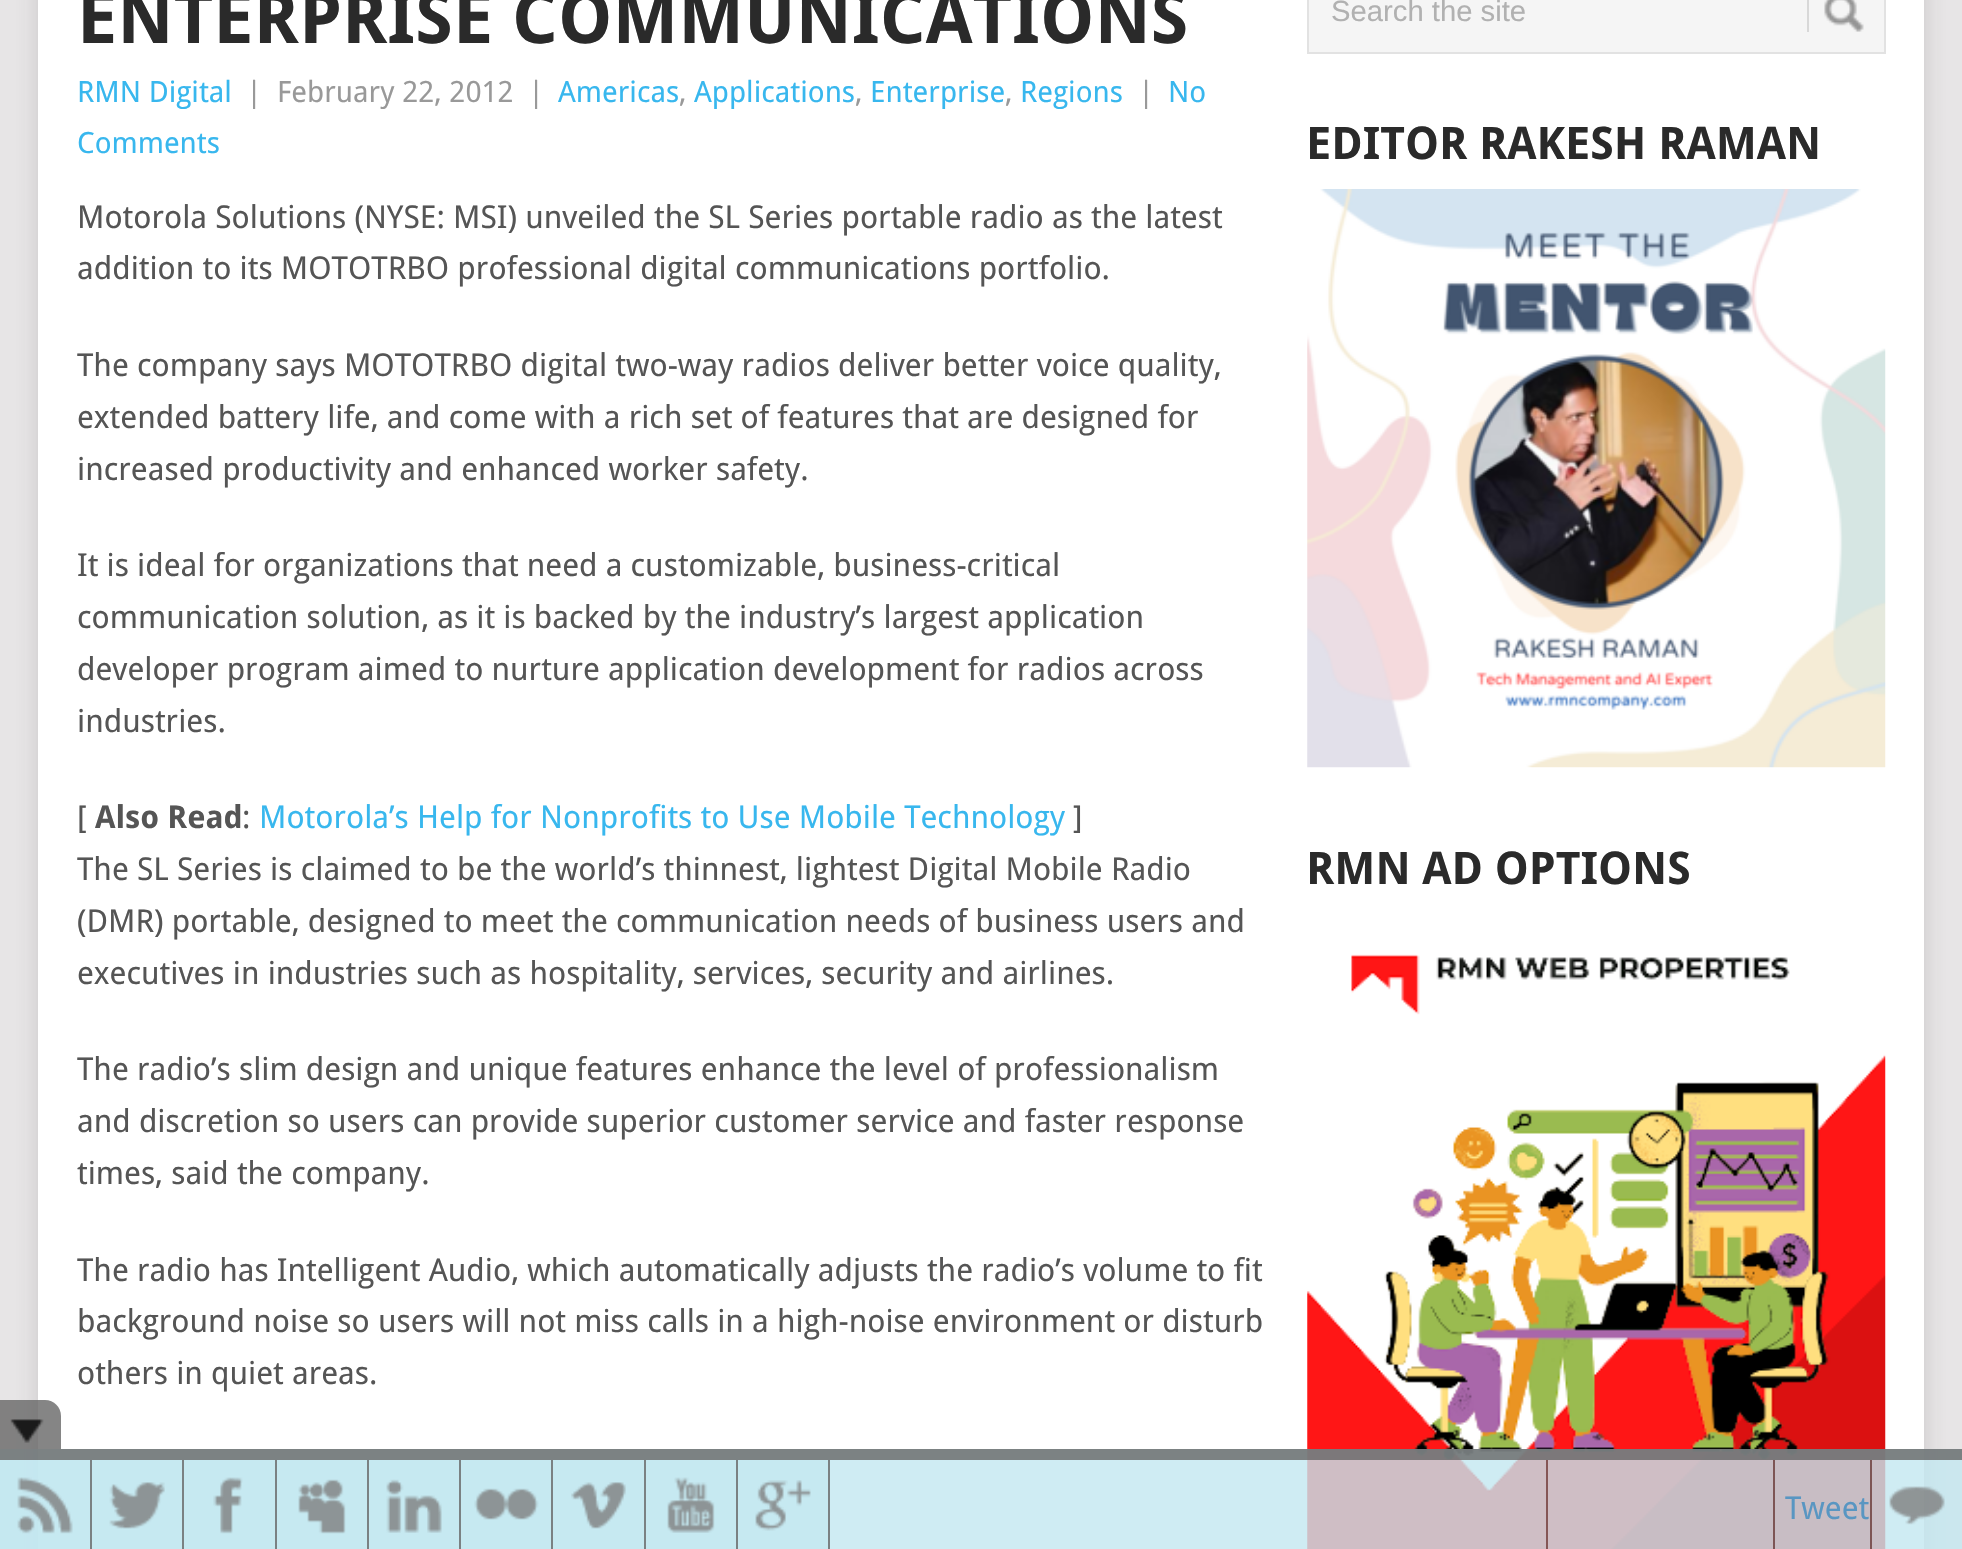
static SkFont makeFont(const char* family, int weight, float size, bool italic = false) {
  SkFontStyle style(weight, SkFontStyle::kNormal_Width,
    italic ? SkFontStyle::kItalic_Slant : SkFontStyle::kUpright_Slant);
  SkFont result(fontMgr->matchFamilyStyle(family, style), size);
  result.setSubpixel(true);
  return result;
}

static void text(SkCanvas* c, const char* s, float x, float y, const SkFont& font, SkColor color) {
  SkPaint ink(SkColor4f::FromColor(color));
  ink.setAntiAlias(true);
  c->drawString(s, x, y, font, ink);
}

static void box(SkCanvas* c, float l, float t, float r, float b, SkColor color) {
  SkPaint ink(SkColor4f::FromColor(color));
  ink.setAntiAlias(true);
  c->drawRect(SkRect::MakeLTRB(l, t, r, b), ink);
}

static void picture(SkCanvas* c, const char* path, float l, float t, float r, float b) {
  auto image = SkImages::DeferredFromEncodedData(SkData::MakeFromFileName(path));
  c->drawImageRect(image, SkRect::MakeLTRB(l, t, r, b), SkSamplingOptions());
}

void draw(SkCanvas* c) {
  SkPaint paint;
  paint.setAntiAlias(true);
  c->clear(0xffe7e5e6);
  paint.setColor(0x2b323232);
  paint.setMaskFilter(SkMaskFilter::MakeBlur(kNormal_SkBlurStyle, 11));
  c->drawRect(SkRect::MakeLTRB(38, -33, 1924, 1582), paint);
  paint.setMaskFilter(nullptr);
  box(c, 38, 0, 1924, 1549, 0xffffffff);
  SkFont face1 = makeFont("Droid Sans", 700, 72);
  text(c, "ENTERPRISE COMMUNICATIONS", 77, 43, face1, 0xff2a2a2a);
  SkFont face2 = makeFont("Droid Sans", 400, 29.25f);
  text(c, "RMN Digital", 77, 102, face2, 0xff38b7ee);
  text(c, "|", 246, 102, face2, 0xff999999);
  text(c, "February 22, 2012", 277, 102, face2, 0xff999999);
  text(c, "|", 528, 102, face2, 0xff999999);
  text(c, "Americas", 558, 102, face2, 0xff38b7ee);
  text(c, ",", 679, 102, face2, 0xff999999);
  text(c, "Applications", 694, 102, face2, 0xff38b7ee);
  text(c, ",", 855, 102, face2, 0xff999999);
  text(c, "Enterprise", 870, 102, face2, 0xff38b7ee);
  text(c, ",", 1005, 102, face2, 0xff999999);
  text(c, "Regions", 1020, 102, face2, 0xff38b7ee);
  text(c, "|", 1138, 102, face2, 0xff999999);
  text(c, "No", 1168, 102, face2, 0xff38b7ee);
  text(c, "Comments", 77, 153, face2, 0xff38b7ee);
  SkFont face3 = makeFont("Droid Sans", 400, 31.5f);
  text(c, "Motorola Solutions (NYSE: MSI) unveiled the SL Series portable radio as the latest", 77, 228, face3, 0xff555555);
  text(c, "addition to its MOTOTRBO professional digital communications portfolio.", 77, 279, face3, 0xff555555);
  text(c, "The company says MOTOTRBO digital two-way radios deliver better voice quality,", 77, 376, face3, 0xff555555);
  text(c, "extended battery life, and come with a rich set of features that are designed for", 77, 428, face3, 0xff555555);
  text(c, "increased productivity and enhanced worker safety.", 77, 480, face3, 0xff555555);
  text(c, "It is ideal for organizations that need a customizable, business-critical", 77, 576, face3, 0xff555555);
  text(c, "communication solution, as it is backed by the industry’s largest application", 77, 628, face3, 0xff555555);
  text(c, "developer program aimed to nurture application development for radios across", 77, 680, face3, 0xff555555);
  text(c, "industries.", 77, 732, face3, 0xff555555);
  text(c, "[", 77, 828, face3, 0xff555555);
  SkFont face4 = makeFont("Droid Sans", 700, 31.5f);
  text(c, "Also Read", 95, 828, face4, 0xff555555);
  text(c, ":", 242, 828, face3, 0xff555555);
  text(c, "Motorola’s Help for Nonprofits to Use Mobile Technology", 259, 828, face3, 0xff38b7ee);
  text(c, "]", 1073, 828, face3, 0xff555555);
  text(c, "The SL Series is claimed to be the world’s thinnest, lightest Digital Mobile Radio", 77, 880, face3, 0xff555555);
  text(c, "(DMR) portable, designed to meet the communication needs of business users and", 77, 932, face3, 0xff555555);
  text(c, "executives in industries such as hospitality, services, security and airlines.", 77, 984, face3, 0xff555555);
  text(c, "The radio’s slim design and unique features enhance the level of professionalism", 77, 1080, face3, 0xff555555);
  text(c, "and discretion so users can provide superior customer service and faster response", 77, 1132, face3, 0xff555555);
  text(c, "times, said the company.", 77, 1184, face3, 0xff555555);
  text(c, "The radio has Intelligent Audio, which automatically adjusts the radio’s volume to fit", 77, 1281, face3, 0xff555555);
  text(c, "background noise so users will not miss calls in a high-noise environment or disturb", 77, 1332, face3, 0xff555555);
  text(c, "others in quiet areas.", 77, 1384, face3, 0xff555555);
  paint.setColor(0xfff5f5f5);
  c->drawRect(SkRect::MakeLTRB(1308, -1, 1885, 53), paint);
  paint.setStyle(SkPaint::kStroke_Style);
  paint.setStrokeWidth(2);
  paint.setColor(0xffe2e2e2);
  c->drawRect(SkRect::MakeLTRB(1308, -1, 1885, 53), paint);
  SkFont face5 = makeFont("Liberation Sans", 400, 29.25f);
  text(c, "Search the site", 1331, 21, face5, 0xffb1b1b1);
  picture(c, "img_01.png", 1824, 0, 1864, 32);
  box(c, 1807, 0, 1809, 32, 0xffd8d8d8);
  SkFont face6 = makeFont("Droid Sans", 700, 45);
  text(c, "EDITOR RAKESH RAMAN", 1306, 159, face6, 0xff2a2a2a);
  picture(c, "img_02.png", 1307, 189, 1886, 768);
  text(c, "RMN AD OPTIONS", 1306, 884, face6, 0xff2a2a2a);
  picture(c, "img_03.png", 1307, 954, 1886, 1549);
  paint.setStyle(SkPaint::kFill_Style);
  paint.setColor(0xcc666666);
  c->drawPath(SkPathBuilder().moveTo(0, 1400).lineTo(45, 1400).cubicTo(54, 1400, 61, 1407, 61, 1416).lineTo(61, 1449).lineTo(0, 1449).close().detach(), paint);
  picture(c, "img_04.png", 10, 1419, 44, 1443);
  box(c, 0, 1449, 1962, 1549, 0xccc3e7f0);
  box(c, 0, 1449, 1962, 1460, 0xcc666666);
  box(c, 0, 1460, 830, 1549, 0xccc3e7f0);
  box(c, 90, 1460, 92, 1549, 0xcc666666);
  picture(c, "img_05.png", 17, 1477, 73, 1534);
  box(c, 182, 1460, 184, 1549, 0xcc666666);
  picture(c, "img_06.png", 109, 1482, 165, 1529);
  box(c, 275, 1460, 277, 1549, 0xcc666666);
  picture(c, "img_07.png", 213, 1477, 243, 1534);
  box(c, 367, 1460, 369, 1549, 0xcc666666);
  picture(c, "img_08.png", 298, 1479, 346, 1534);
  box(c, 459, 1460, 461, 1549, 0xcc666666);
  picture(c, "img_09.png", 386, 1479, 442, 1533);
  box(c, 551, 1460, 553, 1549, 0xcc666666);
  picture(c, "img_10.png", 474, 1488, 539, 1520);
  box(c, 644, 1460, 646, 1549, 0xcc666666);
  picture(c, "img_11.png", 571, 1482, 626, 1529);
  box(c, 736, 1460, 738, 1549, 0xcc666666);
  picture(c, "img_12.png", 667, 1477, 715, 1533);
  box(c, 828, 1460, 830, 1549, 0xcc666666);
  picture(c, "img_13.png", 755, 1480, 811, 1531);
  box(c, 1546, 1460, 1548, 1549, 0xff855656);
  box(c, 1773, 1460, 1775, 1549, 0xff7d5555);
  text(c, "Tweet", 1785, 1519, face3, 0xff5996c2);
  box(c, 1870, 1460, 1872, 1549, 0xff7d5555);
  picture(c, "img_14.png", 1889, 1486, 1945, 1525);
}
